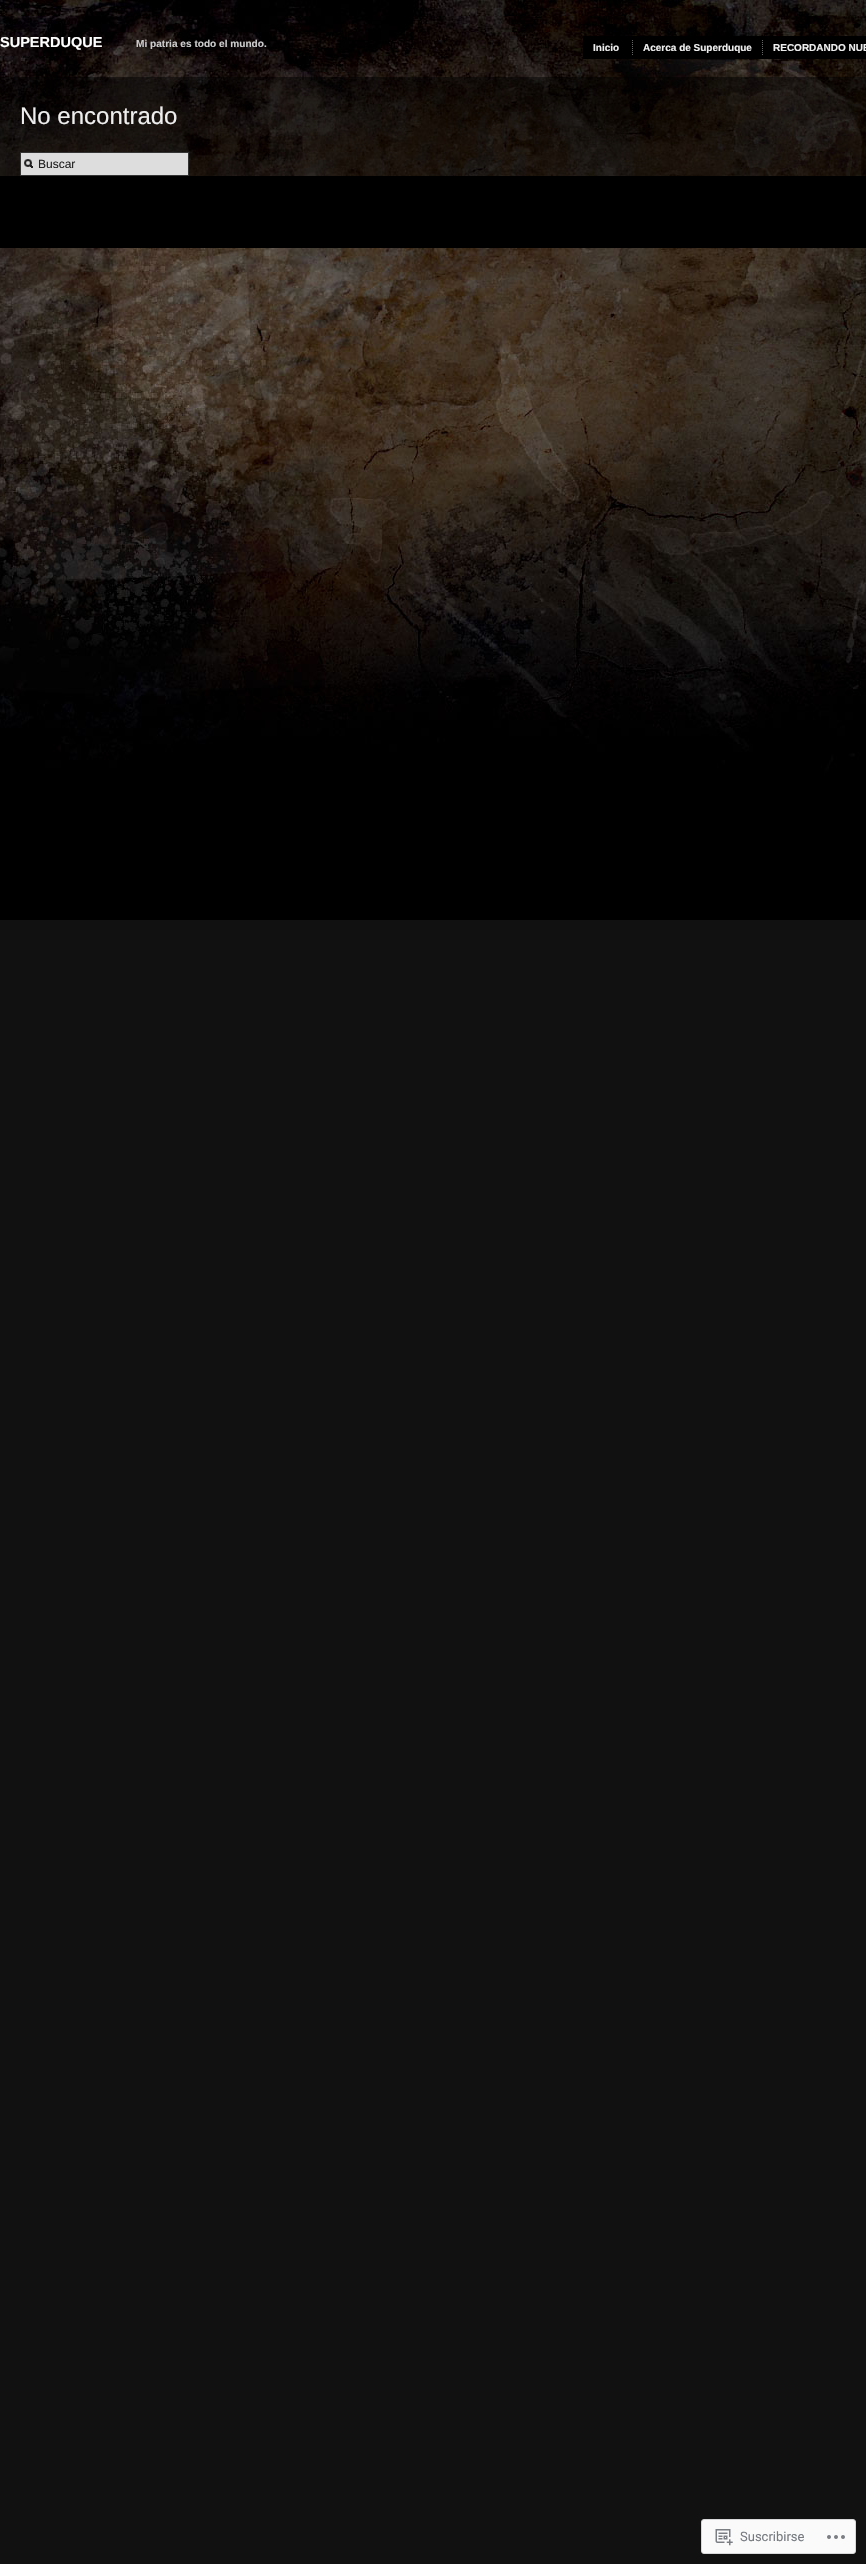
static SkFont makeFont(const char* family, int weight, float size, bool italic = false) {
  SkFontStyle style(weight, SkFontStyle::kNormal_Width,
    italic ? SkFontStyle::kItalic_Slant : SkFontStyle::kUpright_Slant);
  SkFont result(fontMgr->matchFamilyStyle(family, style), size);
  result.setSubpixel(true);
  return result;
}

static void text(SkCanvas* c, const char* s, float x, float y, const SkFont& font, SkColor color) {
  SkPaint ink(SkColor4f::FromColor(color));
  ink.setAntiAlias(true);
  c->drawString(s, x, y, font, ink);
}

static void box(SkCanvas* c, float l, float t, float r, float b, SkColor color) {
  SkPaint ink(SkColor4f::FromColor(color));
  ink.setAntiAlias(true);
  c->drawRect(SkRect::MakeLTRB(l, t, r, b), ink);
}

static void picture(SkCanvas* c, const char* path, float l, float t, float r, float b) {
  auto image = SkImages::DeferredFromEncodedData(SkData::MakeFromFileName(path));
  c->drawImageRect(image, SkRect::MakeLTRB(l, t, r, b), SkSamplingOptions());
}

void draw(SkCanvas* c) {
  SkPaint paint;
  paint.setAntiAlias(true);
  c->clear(0xff111111);
  picture(c, "img_01.png", 0, 0, 866, 920);
  SkFont face1 = makeFont("Liberation Sans", 700, 14.5f);
  text(c, "SUPERDUQUE", 0, 47, face1, 0xffffffff);
  SkFont face2 = makeFont("Liberation Sans", 700, 10.1f);
  text(c, "Mi patria es todo el mundo.", 136, 47, face2, 0xffcccccc);
  box(c, 583, 36, 866, 59, 0xff000000);
  paint.setStyle(SkPaint::kStroke_Style);
  paint.setStrokeWidth(1);
  paint.setColor(0xff666666);
  paint.setPathEffect(SkDashPathEffect::Make({{1, 1}}, 0));
  c->drawPath(SkPathBuilder().moveTo(632.5f, 40).lineTo(632.5f, 55).detach(), paint);
  paint.setPathEffect(nullptr);
  SkFont face3 = makeFont("Liberation Sans", 700, 10);
  text(c, "Inicio", 593, 51, face3, 0xffeeeeee);
  paint.setPathEffect(SkDashPathEffect::Make({{1, 1}}, 0));
  c->drawPath(SkPathBuilder().moveTo(762.5f, 40).lineTo(762.5f, 55).detach(), paint);
  paint.setPathEffect(nullptr);
  text(c, "Acerca de Superduque", 643, 51, face3, 0xffeeeeee);
  text(c, "RECORDANDO NUE", 773, 51, face3, 0xffeeeeee);
  box(c, 0, 77, 866, 176, 0x80000000);
  SkFont face4 = makeFont("Liberation Sans", 400, 24);
  text(c, "No encontrado", 20, 124, face4, 0xffeeeeee);
  box(c, 21, 153, 188, 175, 0xffdddddd);
  picture(c, "img_02.png", 24, 159, 33, 168);
  paint.setColor(0xff333333);
  c->drawRect(SkRect::MakeLTRB(20.5f, 152.5f, 188.5f, 175.5f), paint);
  SkFont face5 = makeFont("Liberation Sans", 400, 12);
  text(c, "Buscar", 38, 168, face5, 0xff222222);
  box(c, 0, 176, 866, 248, 0xff000000);
  paint.setStyle(SkPaint::kFill_Style);
  paint.setColor(0xfffafafa);
  c->drawRoundRect(SkRect::MakeLTRB(701.5f, 2519.5f, 855.5f, 2553.5f), 2.5f, 2.5f, paint);
  paint.setStyle(SkPaint::kStroke_Style);
  paint.setColor(0xffd8d8da);
  c->drawRoundRect(SkRect::MakeLTRB(701.5f, 2519.5f, 855.5f, 2553.5f), 2.5f, 2.5f, paint);
  picture(c, "img_03.png", 715, 2529, 733, 2546);
  SkFont face6 = makeFont("Roboto", 400, 13);
  text(c, "Suscribirse", 740, 2541, face6, 0xff767a80);
  picture(c, "img_04.png", 827, 2535, 845, 2539);
}
